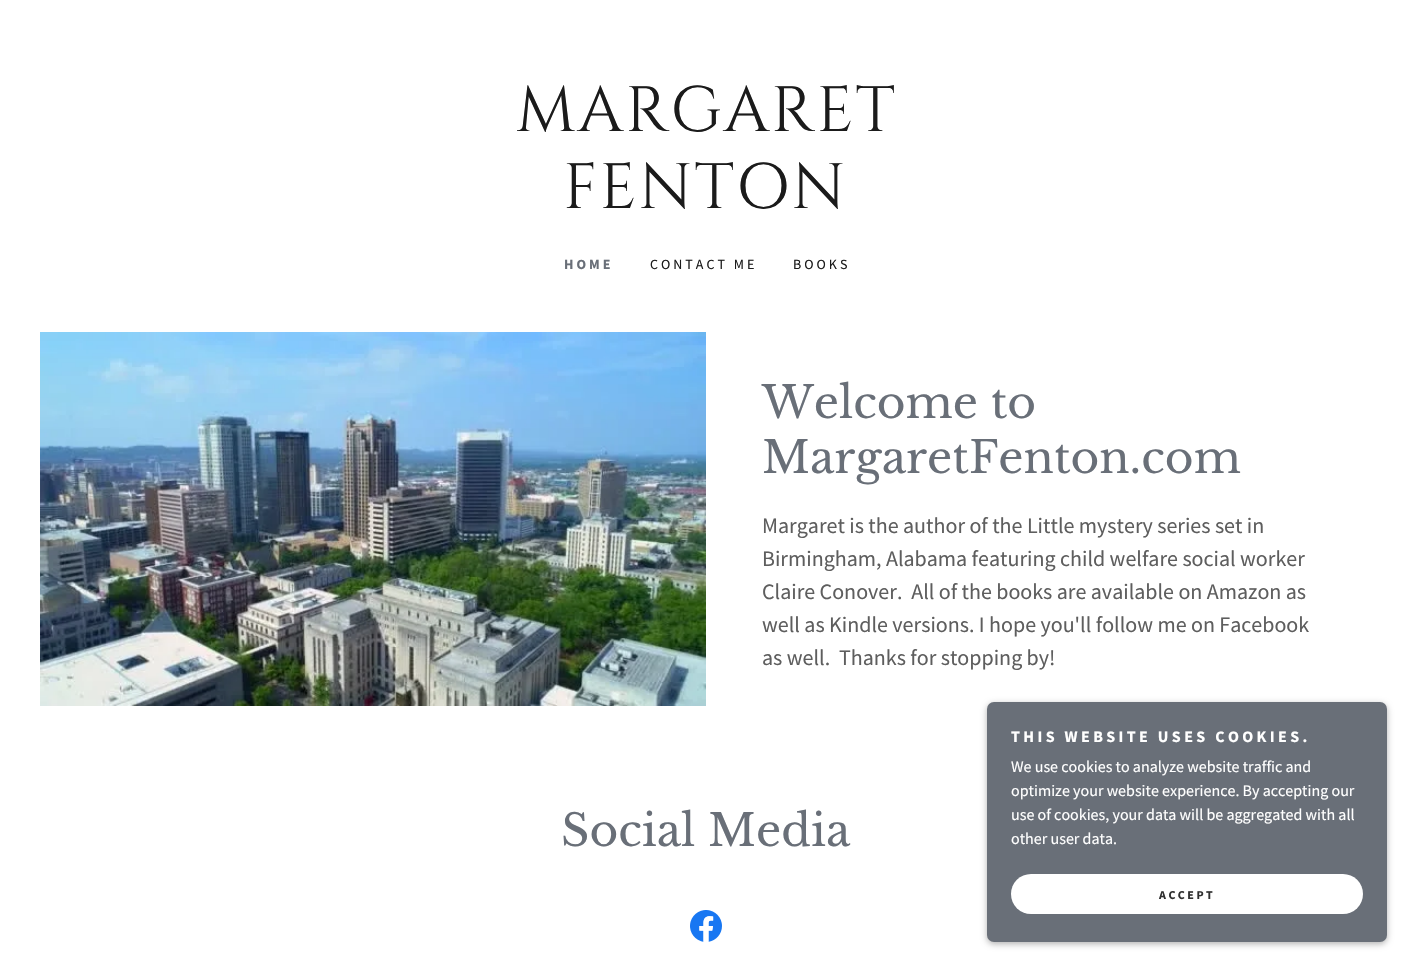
static SkFont makeFont(const char* family, int weight, float size, bool italic = false) {
  SkFontStyle style(weight, SkFontStyle::kNormal_Width,
    italic ? SkFontStyle::kItalic_Slant : SkFontStyle::kUpright_Slant);
  SkFont result(fontMgr->matchFamilyStyle(family, style), size);
  result.setSubpixel(true);
  return result;
}

static void text(SkCanvas* c, const char* s, float x, float y, const SkFont& font, SkColor color) {
  SkPaint ink(SkColor4f::FromColor(color));
  ink.setAntiAlias(true);
  c->drawString(s, x, y, font, ink);
}

static void spacedText(SkCanvas* c, const char* s, float x, float y, const SkFont& font, const SkPaint& ink, float letter, float word) {
  std::vector<SkGlyphID> glyphs(font.countText(s, strlen(s), SkTextEncoding::kUTF8));
  std::vector<float> xs(glyphs.size());
  font.textToGlyphs(s, strlen(s), SkTextEncoding::kUTF8, glyphs);
  font.getXPos(glyphs, xs, x);
  float extra = 0;
  for (size_t i = 0; i < glyphs.size(); i++) {
    xs[i] += extra;
    extra += letter + word * (glyphs[i] == font.unicharToGlyph(' '));
  }
  c->drawTextBlob(SkTextBlob::MakeFromPosHGlyphs(glyphs, xs, y, font), 0, 0, ink);
}

static void roundBox(SkCanvas* c, float l, float t, float r, float b, float radius, SkColor color) {
  SkPaint ink(SkColor4f::FromColor(color));
  ink.setAntiAlias(true);
  c->drawRoundRect(SkRect::MakeLTRB(l, t, r, b), radius, radius, ink);
}

static void picture(SkCanvas* c, const char* path, float l, float t, float r, float b) {
  auto image = SkImages::DeferredFromEncodedData(SkData::MakeFromFileName(path));
  c->drawImageRect(image, SkRect::MakeLTRB(l, t, r, b), SkSamplingOptions());
}

void draw(SkCanvas* c) {
  SkPaint paint;
  paint.setAntiAlias(true);
  c->clear(0xffffffff);
  SkFont face1 = makeFont("Cinzel", 400, 64);
  paint.setColor(0xff1b1b1b);
  spacedText(c, "MARGARET", 516, 131, face1, paint, 2, 0);
  spacedText(c, "FENTON", 563, 208, face1, paint, 2, 0);
  SkFont face2 = makeFont("Source Sans Pro", 700, 14);
  paint.setColor(0xff696f78);
  spacedText(c, "HOME", 564, 269, face2, paint, 3, 0);
  SkFont face3 = makeFont("Source Sans Pro", 400, 14);
  paint.setColor(0xff1b1b1b);
  spacedText(c, "CONTACT ME", 650, 269, face3, paint, 3, 0);
  spacedText(c, "BOOKS", 793, 269, face3, paint, 3, 0);
  picture(c, "img_01.png", 40, 332, 706, 706);
  SkFont face4 = makeFont("Libre Baskerville", 400, 44);
  text(c, "Welcome to", 762, 418, face4, 0xff696f78);
  text(c, "MargaretFenton.com", 762, 473, face4, 0xff696f78);
  SkFont face5 = makeFont("Source Sans Pro", 400, 22);
  text(c, "Margaret is the author of the Little mystery series set in", 762, 533, face5, 0xff5e5e5e);
  text(c, "Birmingham, Alabama featuring child welfare social worker", 762, 566, face5, 0xff5e5e5e);
  text(c, "Claire Conover.  All of the books are available on Amazon as", 762, 599, face5, 0xff5e5e5e);
  text(c, "well as Kindle versions. I hope you'll follow me on Facebook", 762, 632, face5, 0xff5e5e5e);
  text(c, "as well.  Thanks for stopping by!", 762, 665, face5, 0xff5e5e5e);
  text(c, "Social Media", 561, 846, face4, 0xff696f78);
  picture(c, "img_02.png", 690, 910, 722, 942);
  paint.setColor(0x4d000000);
  paint.setMaskFilter(SkMaskFilter::MakeBlur(kNormal_SkBlurStyle, 3));
  c->drawRoundRect(SkRect::MakeLTRB(987, 704, 1387, 944), 7, 7, paint);
  paint.setMaskFilter(nullptr);
  roundBox(c, 987, 702, 1387, 942, 7, 0xff696f78);
  SkFont face6 = makeFont("Source Sans Pro", 700, 16);
  paint.setColor(0xffffffff);
  spacedText(c, "THIS WEBSITE USES COOKIES.", 1011, 742, face6, paint, 3.4f, 0);
  SkFont face7 = makeFont("Source Sans Pro", 400, 16);
  text(c, "We use cookies to analyze website traffic and", 1011, 772, face7, 0xffffffff);
  text(c, "optimize your website experience. By accepting our", 1011, 796, face7, 0xffffffff);
  text(c, "use of cookies, your data will be aggregated with all", 1011, 820, face7, 0xffffffff);
  text(c, "other user data.", 1011, 844, face7, 0xffffffff);
  roundBox(c, 1011, 874, 1363, 914, 20, 0xffffffff);
  SkFont face8 = makeFont("Source Sans Pro", 700, 12);
  paint.setColor(0xff303030);
  spacedText(c, "ACCEPT", 1159, 899, face8, paint, 2.5f, 0);
}
